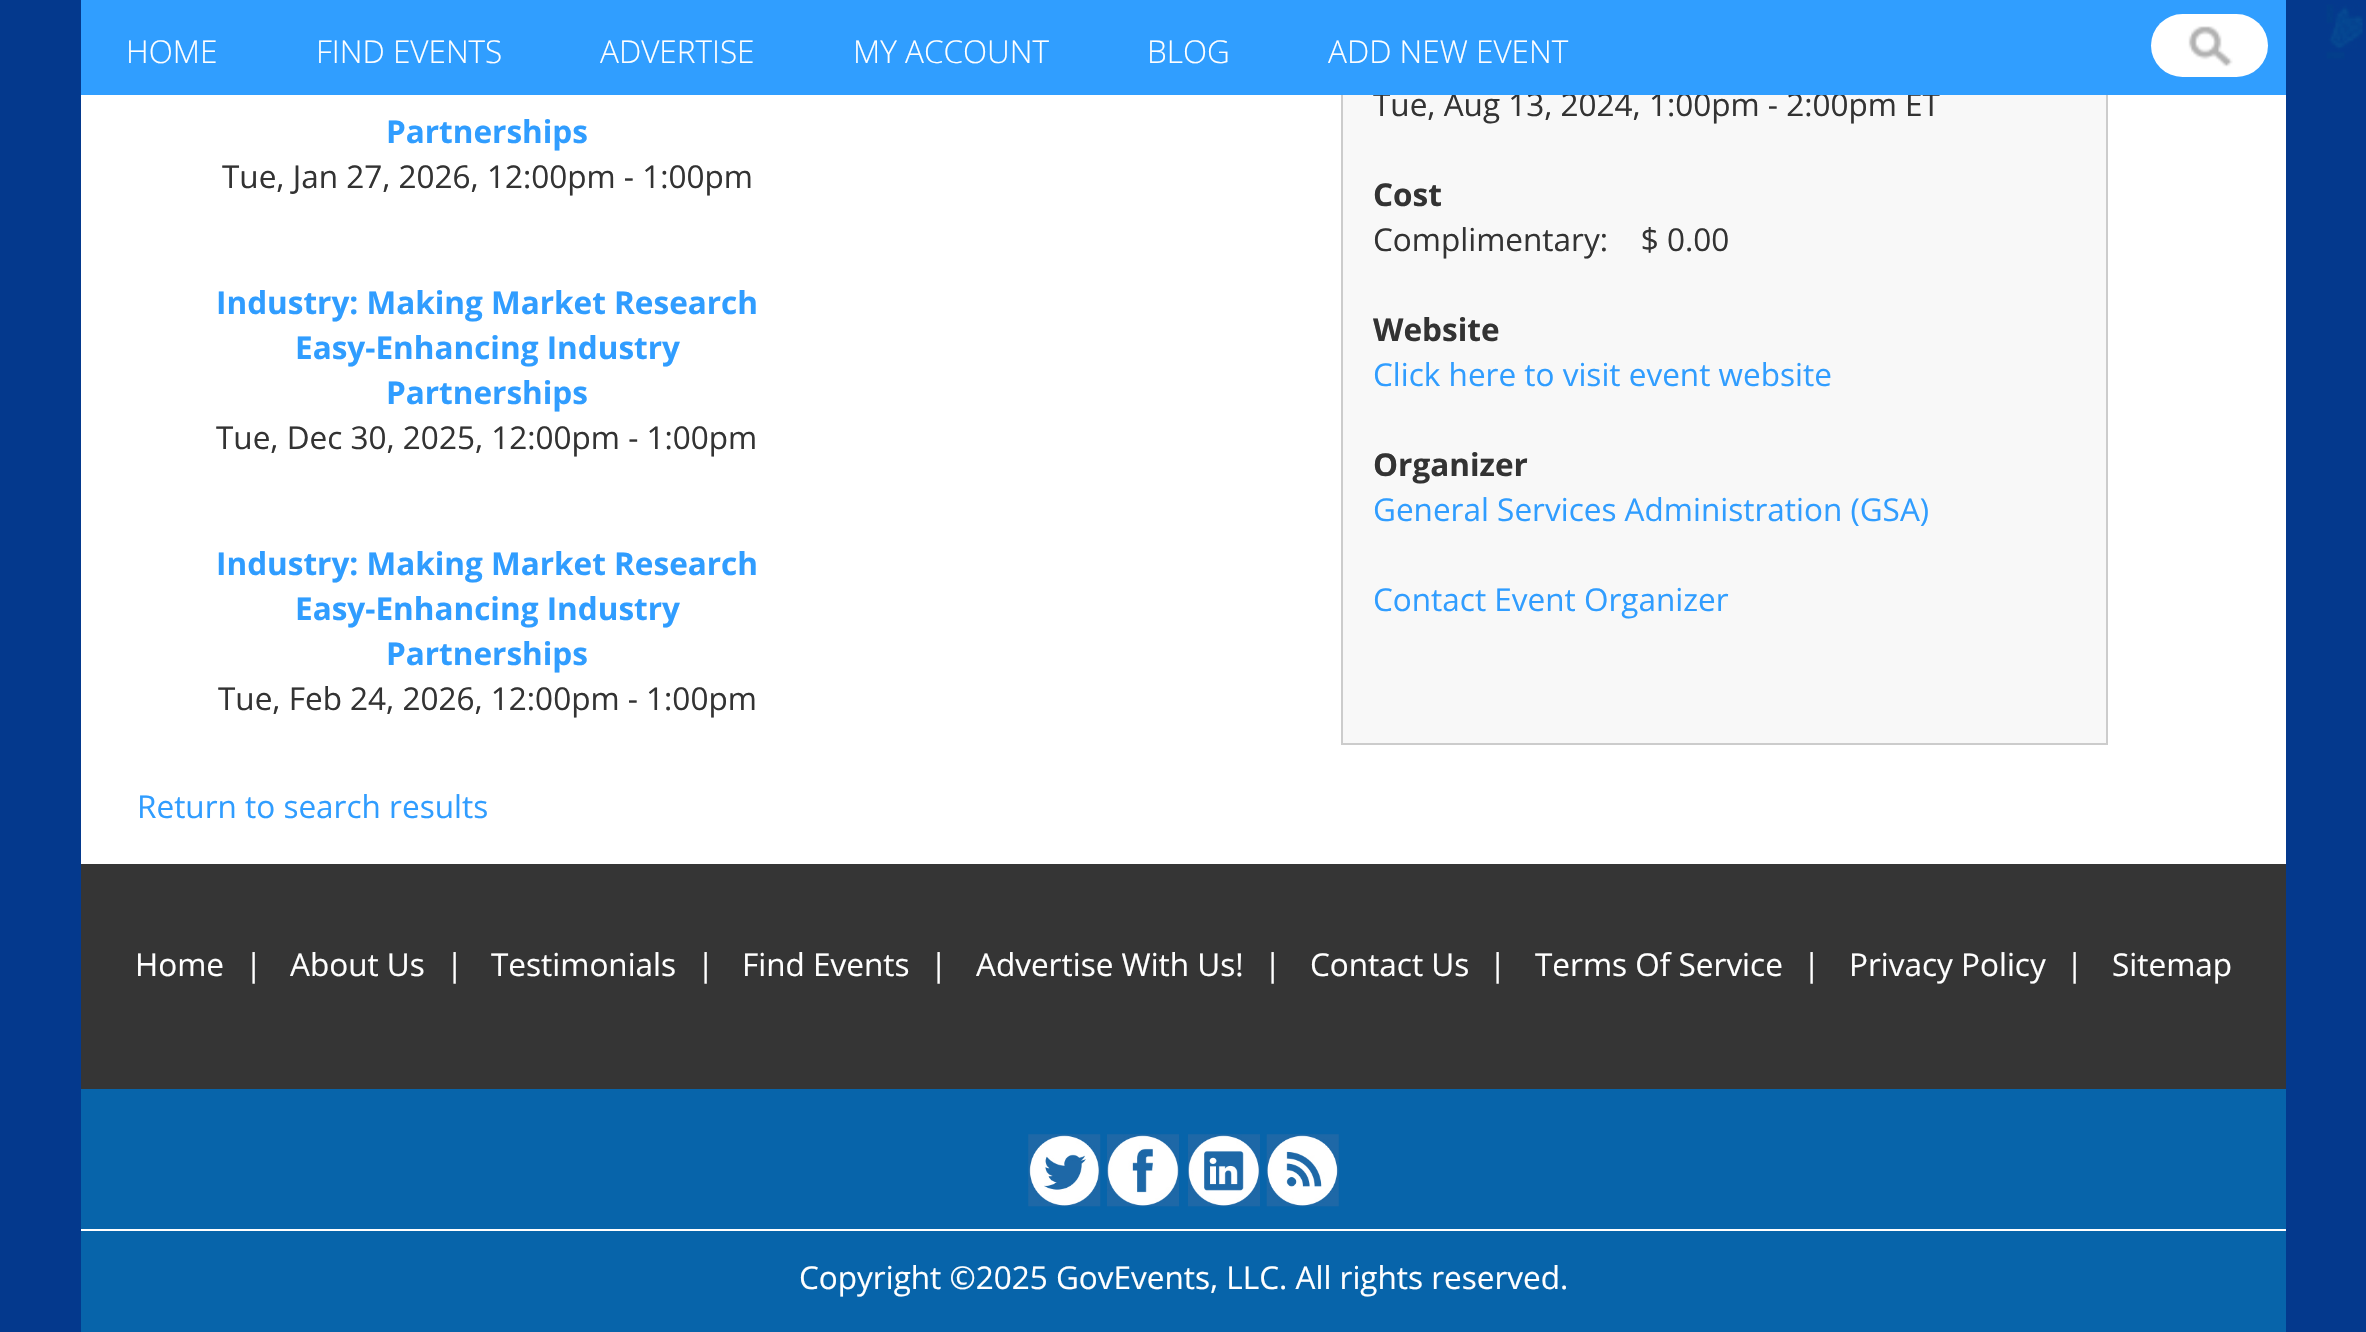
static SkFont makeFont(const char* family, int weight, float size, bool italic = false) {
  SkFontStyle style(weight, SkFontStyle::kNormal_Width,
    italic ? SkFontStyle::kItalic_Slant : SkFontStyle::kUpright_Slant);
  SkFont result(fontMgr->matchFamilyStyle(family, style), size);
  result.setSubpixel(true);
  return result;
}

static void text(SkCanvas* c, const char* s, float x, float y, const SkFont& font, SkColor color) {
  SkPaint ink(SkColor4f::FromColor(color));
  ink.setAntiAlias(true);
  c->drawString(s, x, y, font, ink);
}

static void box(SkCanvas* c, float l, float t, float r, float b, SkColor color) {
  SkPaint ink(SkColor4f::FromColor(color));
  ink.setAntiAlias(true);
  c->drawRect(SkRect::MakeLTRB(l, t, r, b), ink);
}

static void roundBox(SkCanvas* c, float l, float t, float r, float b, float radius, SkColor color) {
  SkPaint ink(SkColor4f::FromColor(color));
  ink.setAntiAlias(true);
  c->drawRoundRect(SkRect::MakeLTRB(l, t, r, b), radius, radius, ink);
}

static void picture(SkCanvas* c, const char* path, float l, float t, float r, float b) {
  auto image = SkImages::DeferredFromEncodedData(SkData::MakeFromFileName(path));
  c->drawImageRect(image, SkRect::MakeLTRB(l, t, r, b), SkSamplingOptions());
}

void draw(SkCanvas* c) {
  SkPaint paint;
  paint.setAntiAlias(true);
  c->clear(0xff04398d);
  picture(c, "img_01.png", 2326, 4, 2363, 60);
  box(c, 81, 95, 2286, 864, 0xffffffff);
  box(c, 1343, 95, 2106, 743, 0xfff8f8f8);
  paint.setStyle(SkPaint::kStroke_Style);
  paint.setStrokeWidth(2);
  paint.setColor(0xffcccccc);
  c->drawRect(SkRect::MakeLTRB(1342, -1, 2107, 744), paint);
  SkFont face1 = makeFont("Open Sans", 400, 31.5f);
  text(c, "Tue, Aug 13, 2024, 1:00pm - 2:00pm ET", 1373, 116, face1, 0xff333333);
  box(c, 81, 0, 2286, 95, 0xff309eff);
  SkFont face2 = makeFont("Open Sans", 300, 31.5f);
  text(c, "HOME", 126, 63, face2, 0xffffffff);
  text(c, "FIND EVENTS", 316, 63, face2, 0xffffffff);
  text(c, "ADVERTISE", 600, 63, face2, 0xffffffff);
  text(c, "MY ACCOUNT", 853, 63, face2, 0xffffffff);
  text(c, "BLOG", 1147, 63, face2, 0xffffffff);
  text(c, "ADD NEW EVENT", 1328, 63, face2, 0xffffffff);
  roundBox(c, 2151, 14, 2268, 77, 31.5f, 0xffffffff);
  picture(c, "img_02.png", 2188, 26, 2233, 67);
  SkFont face3 = makeFont("Open Sans", 700, 31.5f);
  text(c, "Partnerships", 386, 143, face3, 0xff309dff);
  text(c, "Tue, Jan 27, 2026, 12:00pm - 1:00pm", 222, 188, face1, 0xff333333);
  text(c, "Industry: Making Market Research", 216, 314, face3, 0xff309dff);
  text(c, "Easy-Enhancing Industry", 295, 359, face3, 0xff309dff);
  text(c, "Partnerships", 386, 404, face3, 0xff309dff);
  text(c, "Tue, Dec 30, 2025, 12:00pm - 1:00pm", 216, 449, face1, 0xff333333);
  text(c, "Industry: Making Market Research", 216, 575, face3, 0xff309dff);
  text(c, "Easy-Enhancing Industry", 295, 620, face3, 0xff309dff);
  text(c, "Partnerships", 386, 665, face3, 0xff309dff);
  text(c, "Tue, Feb 24, 2026, 12:00pm - 1:00pm", 218, 710, face1, 0xff333333);
  text(c, "Cost", 1373, 206, face3, 0xff333333);
  text(c, "Complimentary:    $ 0.00", 1373, 251, face1, 0xff333333);
  text(c, "Website", 1373, 341, face3, 0xff333333);
  text(c, "Click here to visit event website", 1373, 386, face1, 0xff309dff);
  text(c, "Organizer", 1373, 476, face3, 0xff333333);
  text(c, "General Services Administration (GSA)", 1373, 521, face1, 0xff309dff);
  text(c, "Contact Event Organizer", 1373, 611, face1, 0xff309dff);
  text(c, "Return to search results", 137, 818, face1, 0xff309dff);
  box(c, 81, 1089, 2286, 1332, 0xff0764aa);
  box(c, 81, 864, 2286, 1089, 0xff353535);
  text(c, "Home", 135, 976, face1, 0xffffffff);
  text(c, "|", 245, 976, face1, 0xffffffff);
  text(c, "About Us", 290, 976, face1, 0xffffffff);
  text(c, "|", 446, 976, face1, 0xffffffff);
  text(c, "Testimonials", 491, 976, face1, 0xffffffff);
  text(c, "|", 697, 976, face1, 0xffffffff);
  text(c, "Find Events", 742, 976, face1, 0xffffffff);
  text(c, "|", 930, 976, face1, 0xffffffff);
  text(c, "Advertise With Us!", 976, 976, face1, 0xffffffff);
  text(c, "|", 1264, 976, face1, 0xffffffff);
  text(c, "Contact Us", 1310, 976, face1, 0xffffffff);
  text(c, "|", 1489, 976, face1, 0xffffffff);
  text(c, "Terms Of Service", 1535, 976, face1, 0xffffffff);
  text(c, "|", 1803, 976, face1, 0xffffffff);
  text(c, "Privacy Policy", 1849, 976, face1, 0xffffffff);
  text(c, "|", 2066, 976, face1, 0xffffffff);
  text(c, "Sitemap", 2112, 976, face1, 0xffffffff);
  box(c, 81, 1229, 2286, 1231, 0xffffffff);
  picture(c, "img_03.png", 1028, 1134, 1101, 1207);
  picture(c, "img_04.png", 1107, 1134, 1179, 1207);
  picture(c, "img_05.png", 1188, 1134, 1260, 1207);
  picture(c, "img_06.png", 1266, 1134, 1339, 1207);
  text(c, "Copyright ©2025 GovEvents, LLC. All rights reserved.", 799, 1289, face1, 0xffffffff);
}
